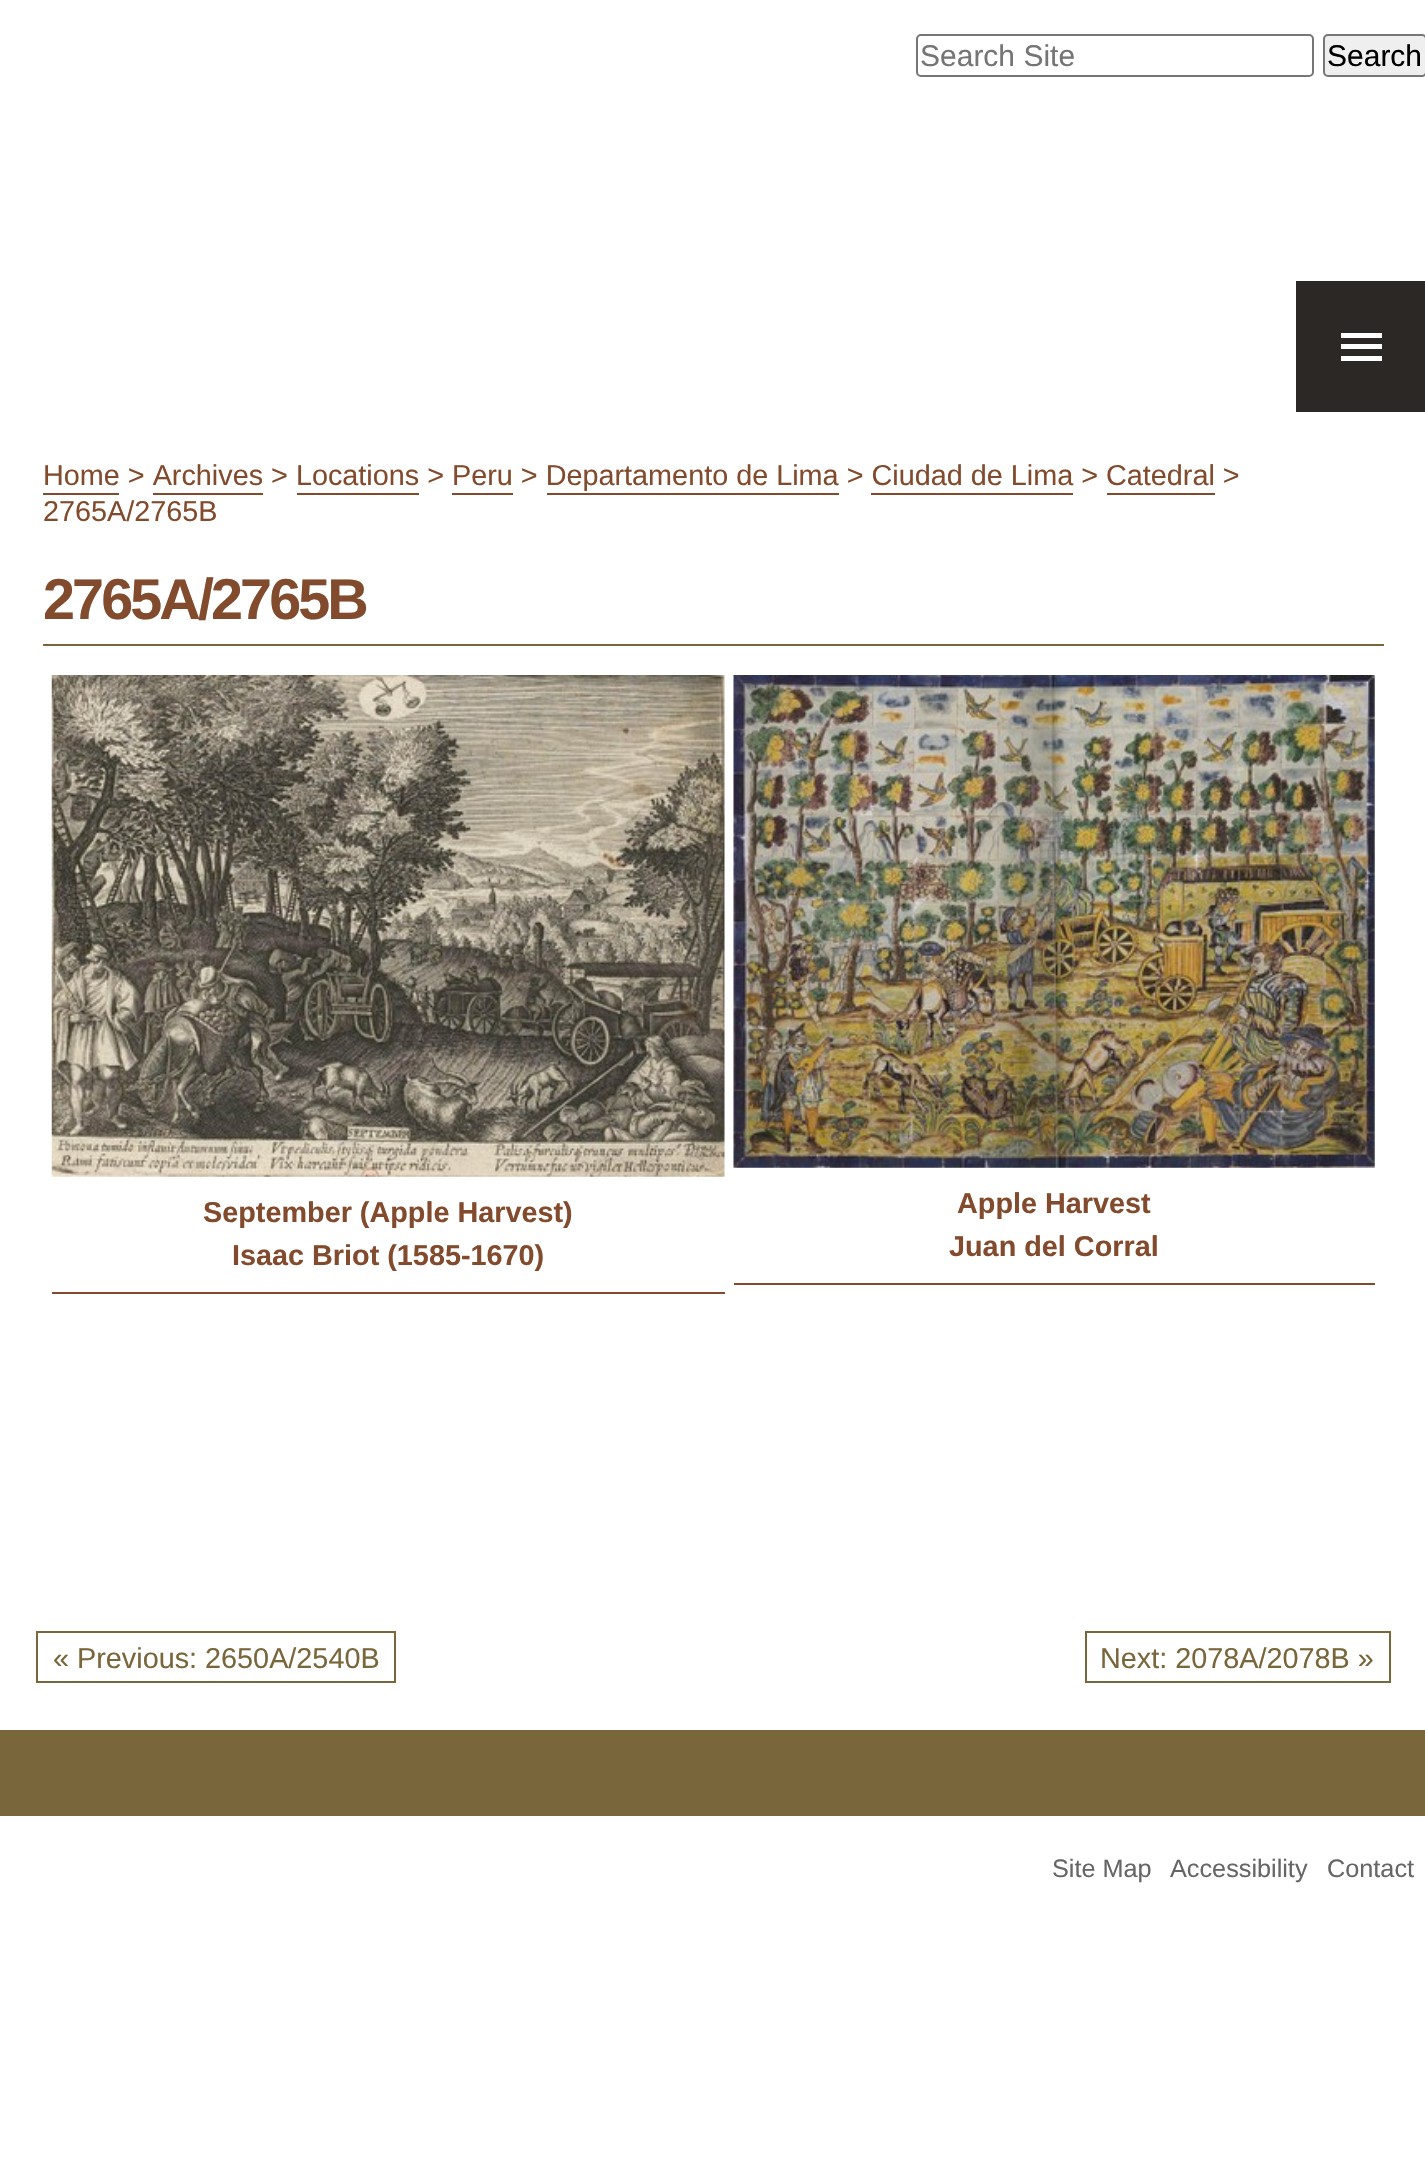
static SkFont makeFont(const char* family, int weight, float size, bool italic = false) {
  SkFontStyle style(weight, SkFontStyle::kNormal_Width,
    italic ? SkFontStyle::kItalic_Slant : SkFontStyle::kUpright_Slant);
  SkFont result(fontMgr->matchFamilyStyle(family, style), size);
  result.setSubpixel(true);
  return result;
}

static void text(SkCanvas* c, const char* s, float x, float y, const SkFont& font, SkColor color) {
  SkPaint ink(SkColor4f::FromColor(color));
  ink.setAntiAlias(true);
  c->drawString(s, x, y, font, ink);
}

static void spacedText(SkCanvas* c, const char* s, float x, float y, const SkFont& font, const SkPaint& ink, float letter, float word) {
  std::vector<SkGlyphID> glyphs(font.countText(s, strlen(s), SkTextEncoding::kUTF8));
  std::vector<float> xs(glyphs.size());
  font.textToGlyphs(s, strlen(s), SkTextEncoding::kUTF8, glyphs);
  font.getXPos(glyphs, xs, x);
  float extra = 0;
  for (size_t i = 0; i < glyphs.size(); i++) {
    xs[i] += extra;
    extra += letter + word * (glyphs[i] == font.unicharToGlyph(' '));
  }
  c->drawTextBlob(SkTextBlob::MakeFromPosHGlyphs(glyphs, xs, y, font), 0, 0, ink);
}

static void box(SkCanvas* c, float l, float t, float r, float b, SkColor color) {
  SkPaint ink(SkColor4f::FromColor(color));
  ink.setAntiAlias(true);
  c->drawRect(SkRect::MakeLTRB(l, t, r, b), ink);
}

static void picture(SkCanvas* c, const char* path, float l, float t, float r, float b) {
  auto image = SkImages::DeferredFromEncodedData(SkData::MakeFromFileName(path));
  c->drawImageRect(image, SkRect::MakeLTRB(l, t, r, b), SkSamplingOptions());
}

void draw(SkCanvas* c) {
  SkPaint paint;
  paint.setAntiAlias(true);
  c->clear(0xffffffff);
  paint.setStyle(SkPaint::kStroke_Style);
  paint.setStrokeWidth(2);
  paint.setColor(0xff767676);
  c->drawRoundRect(SkRect::MakeLTRB(917, 35, 1313, 76), 4, 4, paint);
  SkFont face1 = makeFont("Liberation Sans", 400, 30);
  text(c, "Search Site", 920, 66, face1, 0xff757575);
  paint.setStyle(SkPaint::kFill_Style);
  paint.setColor(0xffefefef);
  c->drawRoundRect(SkRect::MakeLTRB(1324, 35, 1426, 76), 4, 4, paint);
  paint.setStyle(SkPaint::kStroke_Style);
  paint.setColor(0xff767676);
  c->drawRoundRect(SkRect::MakeLTRB(1324, 35, 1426, 76), 4, 4, paint);
  text(c, "Search", 1327, 66, face1, 0xff000000);
  box(c, 1296, 281, 1425, 412, 0xff2c2825);
  box(c, 1341, 344, 1382, 349, 0xffffffff);
  box(c, 1341, 333, 1382, 338, 0xffffffff);
  box(c, 1341, 356, 1382, 361, 0xffffffff);
  box(c, 43, 493, 119, 495, 0xff834b2d);
  SkFont face2 = makeFont("Liberation Sans", 400, 28.8f);
  text(c, "Home > Archives > Locations > Peru > Departamento de Lima > Ciudad de Lima > Catedral >", 43, 485, face2, 0xff834b2d);
  box(c, 153, 493, 263, 495, 0xff834b2d);
  box(c, 297, 493, 419, 495, 0xff834b2d);
  box(c, 452, 493, 513, 495, 0xff834b2d);
  box(c, 547, 493, 839, 495, 0xff834b2d);
  box(c, 871, 493, 1073, 495, 0xff834b2d);
  box(c, 1107, 493, 1215, 495, 0xff834b2d);
  text(c, "2765A/2765B", 43, 521, face2, 0xff834b2d);
  box(c, 43, 644, 1384, 646, 0xff7a663b);
  SkFont face3 = makeFont("Liberation Sans", 700, 57.5f);
  paint.setStyle(SkPaint::kFill_Style);
  paint.setColor(0xff834b2d);
  spacedText(c, "2765A/2765B", 43, 619, face3, paint, -2.9f, 0);
  picture(c, "img_01.png", 51, 675, 725, 1177);
  SkFont face4 = makeFont("Liberation Sans", 700, 28.8f);
  text(c, "September (Apple Harvest)", 203, 1222, face4, 0xff834b2d);
  box(c, 52, 1292, 725, 1294, 0xff834b2d);
  text(c, "Isaac Briot (1585-1670)", 232, 1265, face4, 0xff834b2d);
  picture(c, "img_02.png", 733, 675, 1375, 1168);
  text(c, "Apple Harvest", 957, 1213, face4, 0xff834b2d);
  box(c, 734, 1283, 1375, 1285, 0xff834b2d);
  text(c, "Juan del Corral", 949, 1256, face4, 0xff834b2d);
  paint.setStyle(SkPaint::kStroke_Style);
  paint.setColor(0xff7a663b);
  c->drawRect(SkRect::MakeLTRB(37, 1632, 395, 1682), paint);
  text(c, "« Previous: 2650A/2540B", 53, 1668, face2, 0xff7a663b);
  c->drawRect(SkRect::MakeLTRB(1086, 1632, 1390, 1682), paint);
  text(c, "Next: 2078A/2078B »", 1100, 1668, face2, 0xff7a663b);
  box(c, 0, 1730, 1425, 1816, 0xff7a663b);
  SkFont face5 = makeFont("Liberation Sans", 400, 25.25f);
  text(c, "Site Map", 1052, 1877, face5, 0xff666666);
  text(c, "Accessibility", 1170, 1877, face5, 0xff666666);
  text(c, "Contact", 1327, 1877, face5, 0xff666666);
}
